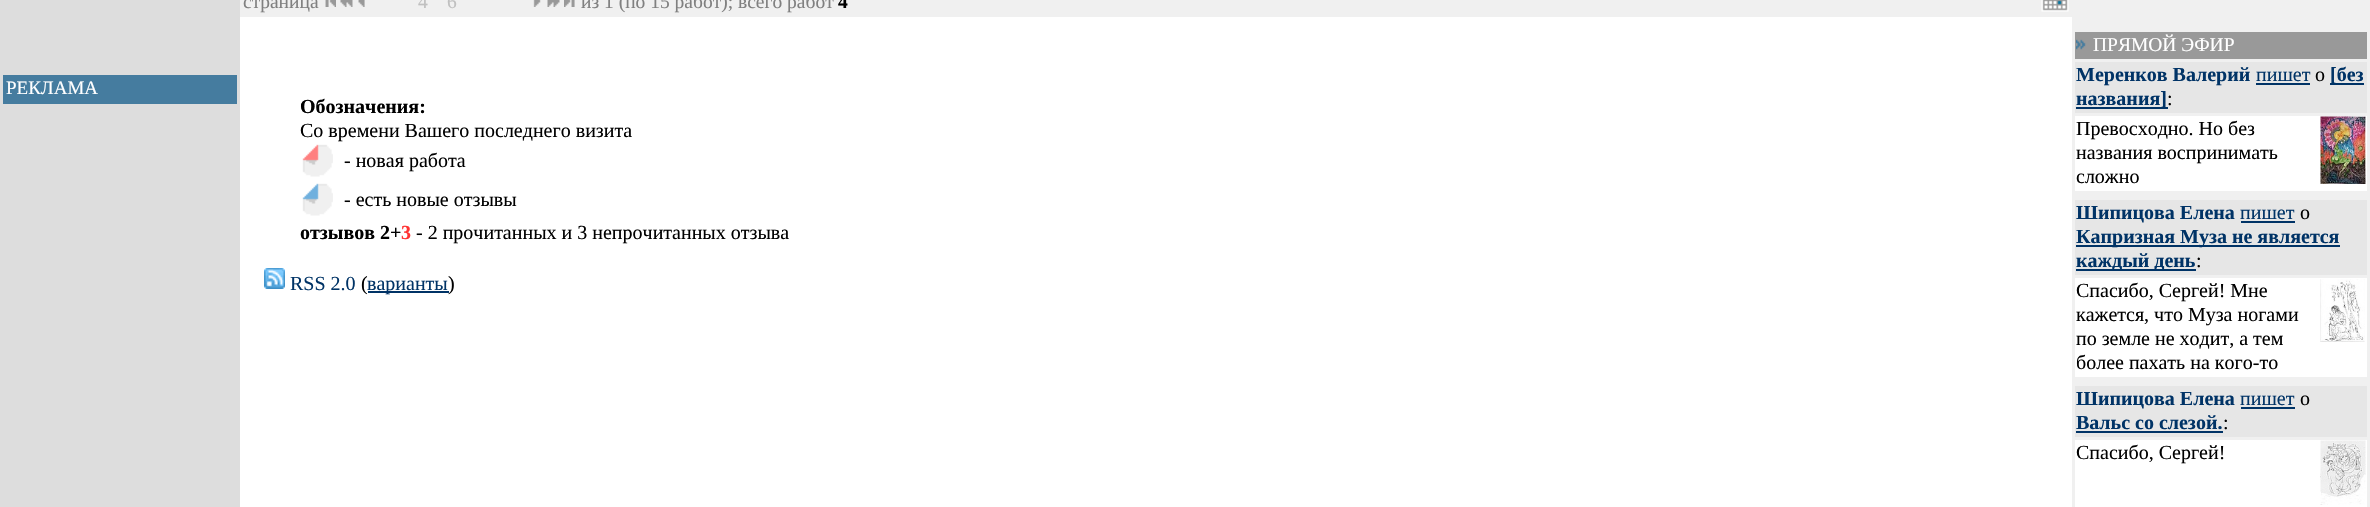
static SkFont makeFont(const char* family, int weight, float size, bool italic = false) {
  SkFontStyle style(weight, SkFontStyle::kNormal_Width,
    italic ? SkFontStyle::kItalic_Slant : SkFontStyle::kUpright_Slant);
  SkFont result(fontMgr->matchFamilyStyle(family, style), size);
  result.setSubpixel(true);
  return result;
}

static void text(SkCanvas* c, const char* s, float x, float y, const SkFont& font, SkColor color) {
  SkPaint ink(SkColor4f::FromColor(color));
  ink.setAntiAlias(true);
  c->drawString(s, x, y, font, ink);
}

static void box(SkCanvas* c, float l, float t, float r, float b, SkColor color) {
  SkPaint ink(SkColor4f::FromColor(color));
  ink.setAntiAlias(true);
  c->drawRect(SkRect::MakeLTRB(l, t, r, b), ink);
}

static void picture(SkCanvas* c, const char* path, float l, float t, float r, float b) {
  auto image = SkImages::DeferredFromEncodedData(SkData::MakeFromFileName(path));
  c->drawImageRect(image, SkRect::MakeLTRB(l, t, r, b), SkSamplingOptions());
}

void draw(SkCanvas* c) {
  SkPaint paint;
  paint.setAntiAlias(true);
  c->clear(0xffffffff);
  box(c, 0, 0, 240, 507, 0xffdddddd);
  box(c, 3, 75, 237, 104, 0xff457c9f);
  SkFont face1 = makeFont("Liberation Serif", 400, 19);
  text(c, "РЕКЛАМА", 6, 94, face1, 0xffffffff);
  box(c, 240, 0, 2072, 17, 0xfff0f0f0);
  SkFont face2 = makeFont("Liberation Serif", 400, 19.5f);
  text(c, "страница", 243, 8, face2, 0xff808080);
  picture(c, "img_01.png", 325, 0, 336, 7);
  picture(c, "img_02.png", 340, 0, 353, 7);
  picture(c, "img_03.png", 358, 0, 365, 7);
  text(c, "4", 418, 8, face2, 0xffc0c0c0);
  text(c, "6", 447, 8, face2, 0xffc0c0c0);
  picture(c, "img_04.png", 533, 0, 541, 7);
  picture(c, "img_05.png", 547, 0, 560, 7);
  picture(c, "img_06.png", 564, 0, 575, 7);
  text(c, "из 1 (по 15 работ); всего работ", 581, 8, face2, 0xff808080);
  SkFont face3 = makeFont("Liberation Serif", 700, 19.5f);
  text(c, "4", 838, 8, face3, 0xff000000);
  picture(c, "img_07.png", 2041, 0, 2069, 12);
  SkFont face4 = makeFont("Liberation Serif", 700, 20);
  text(c, "Обозначения:", 300, 113, face4, 0xff000000);
  SkFont face5 = makeFont("Liberation Serif", 400, 20);
  text(c, "Со времени Вашего последнего визита", 300, 137, face5, 0xff000000);
  picture(c, "img_08.png", 302, 144, 333, 177);
  text(c, "- новая работа", 344, 167, face5, 0xff000000);
  picture(c, "img_09.png", 302, 183, 333, 216);
  text(c, "- есть новые отзывы", 344, 206, face5, 0xff000000);
  text(c, "отзывов 2+", 300, 239, face4, 0xff000000);
  text(c, "3", 401, 239, face4, 0xffff3333);
  text(c, "- 2 прочитанных и 3 непрочитанных отзыва", 416, 239, face5, 0xff000000);
  picture(c, "img_10.png", 264, 268, 285, 289);
  text(c, "RSS 2.0", 290, 290, face5, 0xff003366);
  text(c, "(", 361, 290, face5, 0xff000000);
  box(c, 368, 291, 449, 293, 0xff003366);
  text(c, "варианты", 367, 290, face5, 0xff003366);
  text(c, ")", 448, 290, face5, 0xff000000);
  box(c, 2072, 0, 2370, 507, 0xfff0f0f0);
  box(c, 2075, 32, 2367, 59, 0xff999999);
  picture(c, "img_11.png", 2076, 39, 2086, 50);
  text(c, "ПРЯМОЙ ЭФИР", 2093, 51, face2, 0xffffffff);
  box(c, 2075, 62, 2367, 113, 0xffe6e6e6);
  text(c, "Меренков Валерий", 2076, 81, face4, 0xff003366);
  text(c, "пишет", 2256, 81, face5, 0xff003366);
  box(c, 2256, 83, 2310, 85, 0xff003366);
  text(c, "о", 2315, 81, face5, 0xff000000);
  box(c, 2330, 83, 2364, 85, 0xff003366);
  text(c, "[без", 2330, 81, face4, 0xff003366);
  box(c, 2076, 107, 2168, 109, 0xff003366);
  text(c, "названия]", 2076, 105, face4, 0xff003366);
  text(c, ":", 2167, 105, face5, 0xff000000);
  box(c, 2075, 116, 2367, 191, 0xffffffff);
  text(c, "Превосходно. Но без", 2076, 135, face5, 0xff000000);
  picture(c, "img_12.png", 2320, 116, 2366, 184);
  text(c, "названия воспринимать", 2076, 159, face5, 0xff000000);
  text(c, "сложно", 2076, 183, face5, 0xff000000);
  box(c, 2075, 200, 2367, 275, 0xffe6e6e6);
  text(c, "Шипицова Елена", 2076, 219, face4, 0xff003366);
  text(c, "пишет", 2240, 219, face5, 0xff003366);
  box(c, 2241, 221, 2295, 223, 0xff003366);
  text(c, "о", 2300, 219, face5, 0xff000000);
  box(c, 2076, 245, 2340, 247, 0xff003366);
  text(c, "Капризная Муза не является", 2076, 243, face4, 0xff003366);
  box(c, 2076, 269, 2196, 271, 0xff003366);
  text(c, "каждый день", 2076, 267, face4, 0xff003366);
  text(c, ":", 2196, 267, face5, 0xff000000);
  box(c, 2075, 278, 2367, 377, 0xffffffff);
  text(c, "Спасибо, Сергей! Мне", 2076, 297, face5, 0xff000000);
  picture(c, "img_13.png", 2320, 279, 2365, 342);
  text(c, "кажется, что Муза ногами", 2076, 321, face5, 0xff000000);
  text(c, "по земле не ходит, а тем", 2076, 345, face5, 0xff000000);
  text(c, "более пахать на кого-то", 2076, 369, face5, 0xff000000);
  box(c, 2075, 386, 2367, 437, 0xffe6e6e6);
  text(c, "Шипицова Елена", 2076, 405, face4, 0xff003366);
  text(c, "пишет", 2240, 405, face5, 0xff003366);
  box(c, 2241, 407, 2295, 409, 0xff003366);
  text(c, "о", 2300, 405, face5, 0xff000000);
  text(c, "Вальс со слезой.", 2076, 429, face4, 0xff003366);
  text(c, ":", 2223, 429, face5, 0xff000000);
  box(c, 2076, 431, 2223, 433, 0xff003366);
  box(c, 2075, 440, 2367, 507, 0xffffffff);
  text(c, "Спасибо, Сергей!", 2076, 459, face5, 0xff000000);
  picture(c, "img_14.png", 2320, 440, 2366, 505);
}
